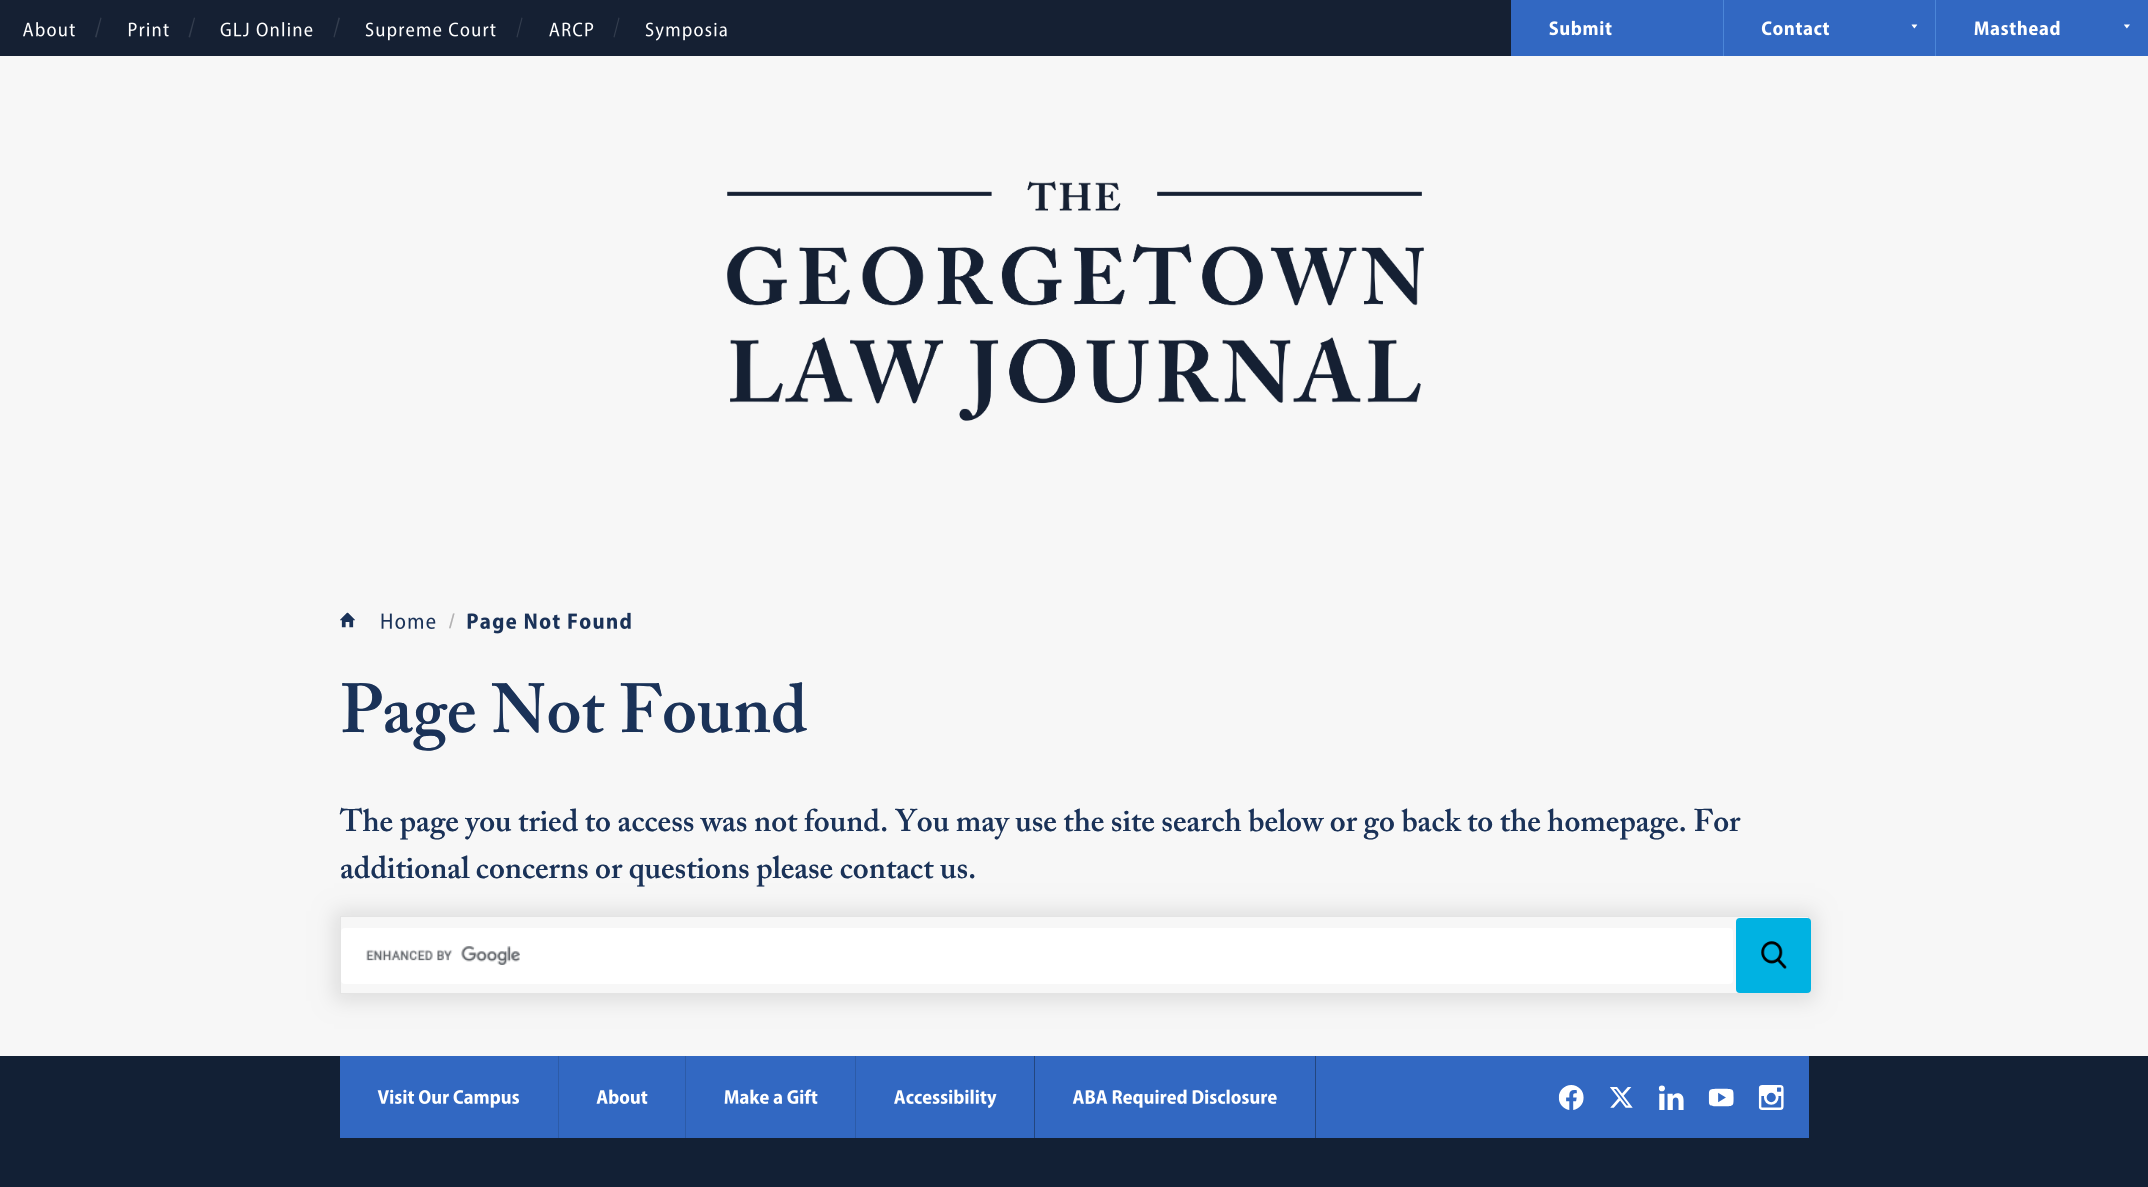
static SkFont makeFont(const char* family, int weight, float size, bool italic = false) {
  SkFontStyle style(weight, SkFontStyle::kNormal_Width,
    italic ? SkFontStyle::kItalic_Slant : SkFontStyle::kUpright_Slant);
  SkFont result(fontMgr->matchFamilyStyle(family, style), size);
  result.setSubpixel(true);
  return result;
}

static void text(SkCanvas* c, const char* s, float x, float y, const SkFont& font, SkColor color) {
  SkPaint ink(SkColor4f::FromColor(color));
  ink.setAntiAlias(true);
  c->drawString(s, x, y, font, ink);
}

static void box(SkCanvas* c, float l, float t, float r, float b, SkColor color) {
  SkPaint ink(SkColor4f::FromColor(color));
  ink.setAntiAlias(true);
  c->drawRect(SkRect::MakeLTRB(l, t, r, b), ink);
}

static void roundBox(SkCanvas* c, float l, float t, float r, float b, float radius, SkColor color) {
  SkPaint ink(SkColor4f::FromColor(color));
  ink.setAntiAlias(true);
  c->drawRoundRect(SkRect::MakeLTRB(l, t, r, b), radius, radius, ink);
}

static void picture(SkCanvas* c, const char* path, float l, float t, float r, float b) {
  auto image = SkImages::DeferredFromEncodedData(SkData::MakeFromFileName(path));
  c->drawImageRect(image, SkRect::MakeLTRB(l, t, r, b), SkSamplingOptions());
}

void draw(SkCanvas* c) {
  SkPaint paint;
  paint.setAntiAlias(true);
  c->clear(0xfff7f7f7);
  box(c, 0, 0, 1511, 56, 0xff152033);
  picture(c, "img_01.png", 23, 22, 75, 37);
  paint.setColor(0xff333d4e);
  c->drawPath(SkPathBuilder().moveTo(100.5f, 17.5f).lineTo(101.5f, 18).lineTo(96.5f, 37.5f).lineTo(95, 37).close().detach(), paint);
  picture(c, "img_02.png", 128, 22, 169, 37);
  c->drawPath(SkPathBuilder().moveTo(194, 17.5f).lineTo(195, 18).lineTo(190, 37.5f).lineTo(188.5f, 37).close().detach(), paint);
  picture(c, "img_03.png", 220, 22, 313, 37);
  c->drawPath(SkPathBuilder().moveTo(338.5f, 17.5f).lineTo(340, 18).lineTo(334.5f, 37.5f).lineTo(333.5f, 37).close().detach(), paint);
  picture(c, "img_04.png", 365, 22, 496, 41);
  c->drawPath(SkPathBuilder().moveTo(521.5f, 17.5f).lineTo(522.5f, 18).lineTo(517.5f, 37.5f).lineTo(516.5f, 37).close().detach(), paint);
  picture(c, "img_05.png", 549, 22, 594, 37);
  c->drawPath(SkPathBuilder().moveTo(618.5f, 17.5f).lineTo(619.5f, 18).lineTo(614.5f, 37.5f).lineTo(613.5f, 37).close().detach(), paint);
  picture(c, "img_06.png", 645, 22, 727, 41);
  box(c, 1511, 0, 1723, 56, 0xff3268c2);
  box(c, 1723, 0, 1724, 56, 0xff4b86d8);
  picture(c, "img_07.png", 1549, 20, 1612, 36);
  box(c, 1724, 0, 1935, 56, 0xff3268c2);
  box(c, 1935, 0, 1936, 56, 0xff4b86d8);
  picture(c, "img_08.png", 1761, 21, 1829, 36);
  picture(c, "img_09.png", 1911, 24, 1918, 29);
  box(c, 1936, 0, 2148, 56, 0xff3268c2);
  picture(c, "img_10.png", 1974, 20, 2060, 36);
  picture(c, "img_11.png", 2124, 24, 2130, 29);
  picture(c, "img_12.png", 727, 181, 1424, 421);
  picture(c, "img_13.png", 340, 612, 355, 628);
  picture(c, "img_14.png", 381, 613, 436, 629);
  SkFont face1 = makeFont("Liberation Sans", 400, 20);
  text(c, "/", 449, 628, face1, 0xffb3b2b3);
  picture(c, "img_15.png", 467, 612, 631, 634);
  SkFont face2 = makeFont("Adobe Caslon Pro", 600, 68.75f);
  text(c, "Page Not Found", 340, 732, face2, 0xff1a3258);
  SkFont face3 = makeFont("Adobe Caslon Pro", 600, 31.25f);
  text(c, "The page you tried to access was not found. You may use the site search below or go back to the homepage. For", 340, 831, face3, 0xff1a3258);
  text(c, "additional concerns or questions please contact us.", 340, 878, face3, 0xff1a3258);
  c->save();
  c->clipPath(SkPathBuilder(SkPathFillType::kEvenOdd).moveTo(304, 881).lineTo(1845, 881).lineTo(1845, 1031).lineTo(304, 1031).close().moveTo(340, 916).lineTo(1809, 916).lineTo(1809, 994).lineTo(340, 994).close().detach(), true);
  paint.setColor(0x1a000000);
  paint.setMaskFilter(SkMaskFilter::MakeBlur(kNormal_SkBlurStyle, 9.5f));
  c->drawRect(SkRect::MakeLTRB(334, 911, 1815, 1001), paint);
  paint.setMaskFilter(nullptr);
  c->restore();
  paint.setStyle(SkPaint::kStroke_Style);
  paint.setStrokeWidth(1);
  paint.setColor(0xffe4e4e4);
  c->drawRect(SkRect::MakeLTRB(340.5f, 916.5f, 1808.5f, 993.5f), paint);
  roundBox(c, 341, 928, 1733, 984, 4, 0xffffffff);
  picture(c, "img_16.png", 366, 946, 520, 965);
  roundBox(c, 1736, 918, 1811, 993, 4, 0xff00b2e2);
  picture(c, "img_17.png", 1761, 941, 1787, 969);
  box(c, 0, 1056, 2148, 1187, 0xff122035);
  box(c, 340, 1056, 1809, 1138, 0xff3268c2);
  box(c, 558, 1056, 559, 1138, 0xff2c5ba8);
  picture(c, "img_18.png", 377, 1089, 519, 1108);
  box(c, 685, 1056, 686, 1138, 0xff2c5ba8);
  picture(c, "img_19.png", 596, 1089, 648, 1104);
  box(c, 855, 1056, 856, 1138, 0xff2c5ba8);
  picture(c, "img_20.png", 724, 1089, 818, 1104);
  box(c, 1034, 1056, 1035, 1138, 0xff23467f);
  picture(c, "img_21.png", 894, 1089, 997, 1109);
  box(c, 1315, 1056, 1316, 1138, 0xff23467f);
  picture(c, "img_22.png", 1072, 1089, 1277, 1108);
  picture(c, "img_23.png", 1558, 1085, 1584, 1110);
  picture(c, "img_24.png", 1610, 1087, 1633, 1108);
  picture(c, "img_25.png", 1658, 1085, 1684, 1110);
  picture(c, "img_26.png", 1708, 1088, 1734, 1107);
  picture(c, "img_27.png", 1758, 1085, 1784, 1110);
}
